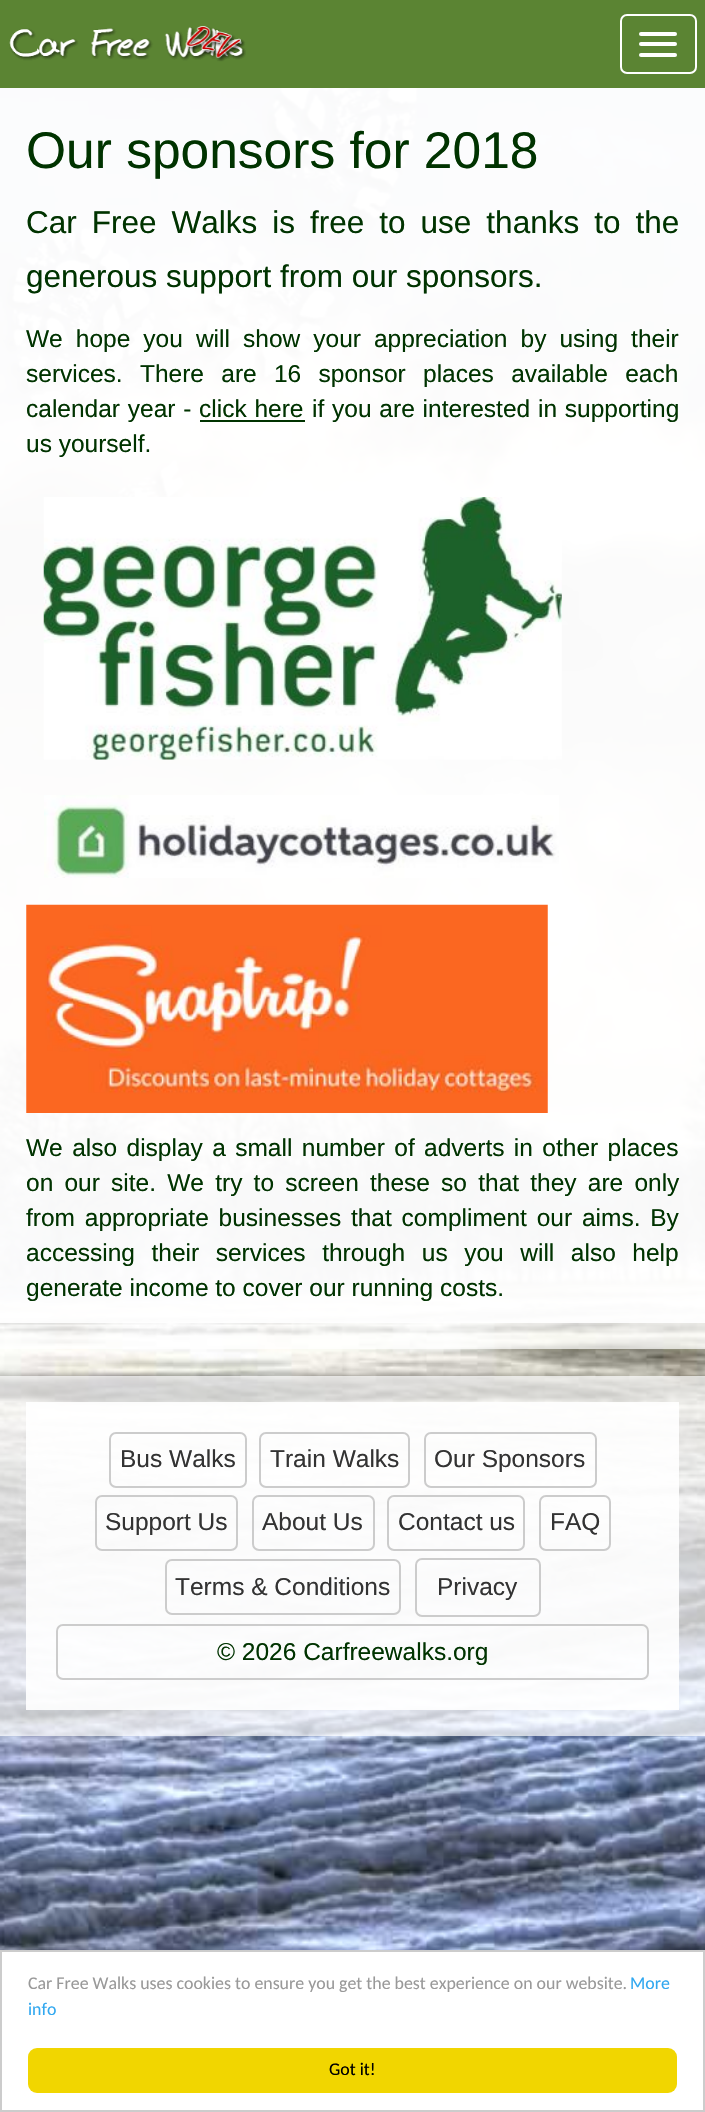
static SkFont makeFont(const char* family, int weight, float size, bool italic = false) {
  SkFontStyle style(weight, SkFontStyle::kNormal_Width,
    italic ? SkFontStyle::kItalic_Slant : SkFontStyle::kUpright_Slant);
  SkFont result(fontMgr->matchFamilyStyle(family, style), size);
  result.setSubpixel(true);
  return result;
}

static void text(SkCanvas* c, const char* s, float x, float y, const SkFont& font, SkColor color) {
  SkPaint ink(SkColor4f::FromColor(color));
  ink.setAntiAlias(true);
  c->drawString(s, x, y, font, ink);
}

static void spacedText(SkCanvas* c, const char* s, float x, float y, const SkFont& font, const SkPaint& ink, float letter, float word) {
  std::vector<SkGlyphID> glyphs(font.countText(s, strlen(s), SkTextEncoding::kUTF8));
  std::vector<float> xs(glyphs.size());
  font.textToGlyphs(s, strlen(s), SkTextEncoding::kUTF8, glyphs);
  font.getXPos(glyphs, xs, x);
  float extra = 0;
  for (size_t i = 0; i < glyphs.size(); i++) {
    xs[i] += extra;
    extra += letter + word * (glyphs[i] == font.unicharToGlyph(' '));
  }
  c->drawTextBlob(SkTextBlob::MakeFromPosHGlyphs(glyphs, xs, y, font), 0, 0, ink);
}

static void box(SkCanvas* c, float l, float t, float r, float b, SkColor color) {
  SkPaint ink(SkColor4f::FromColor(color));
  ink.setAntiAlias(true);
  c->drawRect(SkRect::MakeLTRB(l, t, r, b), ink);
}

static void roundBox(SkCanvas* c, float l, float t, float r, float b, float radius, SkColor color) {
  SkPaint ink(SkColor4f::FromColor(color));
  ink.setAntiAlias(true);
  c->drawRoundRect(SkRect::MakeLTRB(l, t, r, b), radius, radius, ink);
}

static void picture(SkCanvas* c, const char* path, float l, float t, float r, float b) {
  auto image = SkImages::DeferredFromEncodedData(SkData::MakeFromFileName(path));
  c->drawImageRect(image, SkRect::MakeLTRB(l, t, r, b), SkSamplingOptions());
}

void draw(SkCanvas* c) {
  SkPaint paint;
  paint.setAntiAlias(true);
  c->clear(0xffffffff);
  picture(c, "img_01.png", 0, 88, 705, 1950);
  box(c, 0, 0, 705, 88, 0xff5b8433);
  picture(c, "img_02.png", 9, 26, 246, 62);
  paint.setStyle(SkPaint::kStroke_Style);
  paint.setStrokeWidth(2);
  paint.setColor(0xffffffff);
  c->drawRoundRect(SkRect::MakeLTRB(621, 15, 696, 73), 6, 6, paint);
  roundBox(c, 639, 32, 677, 36, 2, 0xffffffff);
  roundBox(c, 639, 42, 677, 46, 2, 0xffffffff);
  roundBox(c, 639, 53, 677, 57, 2, 0xffffffff);
  picture(c, "img_03.png", 0, 88, 419, 497);
  box(c, 0, 88, 705, 1349, 0xb3ffffff);
  box(c, 0, 88, 705, 1323, 0xe6ffffff);
  SkFont face1 = makeFont("Liberation Sans", 400, 51.5f);
  text(c, "Our sponsors for 2018", 26, 168, face1, 0xff003300);
  SkFont face2 = makeFont("Liberation Sans", 400, 31.5f);
  paint.setStyle(SkPaint::kFill_Style);
  paint.setColor(0xff003300);
  spacedText(c, "Car Free Walks is free to use thanks to the", 26, 233, face2, paint, 0, 6.25f);
  text(c, "generous support from our sponsors.", 26, 287, face2, 0xff003300);
  SkFont face3 = makeFont("Liberation Sans", 400, 24.5f);
  spacedText(c, "We hope you will show your appreciation by using their", 26, 347, face3, paint, 0, 6.25f);
  spacedText(c, "services. There are 16 sponsor places available each", 26, 382, face3, paint, 0, 10.5f);
  spacedText(c, "calendar year -", 26, 417, face3, paint, 0, 1);
  spacedText(c, "click here", 199, 417, face3, paint, 0, 1);
  box(c, 200, 420, 305, 422, 0xff003300);
  spacedText(c, "if you are interested in supporting", 312, 417, face3, paint, 0, 1);
  text(c, "us yourself.", 26, 452, face3, 0xff003300);
  picture(c, "img_04.png", 43, 497, 562, 760);
  picture(c, "img_05.png", 44, 795, 559, 878);
  picture(c, "img_06.png", 26, 904, 548, 1113);
  spacedText(c, "We also display a small number of adverts in other places", 26, 1156, face3, paint, 0, 2.6f);
  spacedText(c, "on our site. We try to screen these so that they are only", 26, 1191, face3, paint, 0, 4.4f);
  spacedText(c, "from appropriate businesses that compliment our aims. By", 26, 1226, face3, paint, 0, 3);
  spacedText(c, "accessing their services through us you will also help", 26, 1261, face3, paint, 0, 9.75f);
  text(c, "generate income to cover our running costs.", 26, 1296, face3, 0xff003300);
  box(c, 0, 1376, 705, 1736, 0xb3ffffff);
  box(c, 26, 1402, 679, 1710, 0xe6ffffff);
  paint.setStyle(SkPaint::kStroke_Style);
  paint.setColor(0xffcccccc);
  c->drawRoundRect(SkRect::MakeLTRB(110, 1433, 246, 1487), 6, 6, paint);
  text(c, "Bus Walks", 120, 1467, face3, 0xff333333);
  c->drawRoundRect(SkRect::MakeLTRB(260, 1433, 409, 1487), 6, 6, paint);
  text(c, "Train Walks", 270, 1467, face3, 0xff333333);
  c->drawRoundRect(SkRect::MakeLTRB(425, 1433, 596, 1487), 6, 6, paint);
  text(c, "Our Sponsors", 434, 1467, face3, 0xff333333);
  c->drawRoundRect(SkRect::MakeLTRB(96, 1496, 237, 1550), 6, 6, paint);
  text(c, "Support Us", 105, 1530, face3, 0xff333333);
  c->drawRoundRect(SkRect::MakeLTRB(253, 1496, 374, 1550), 6, 6, paint);
  text(c, "About Us", 262, 1530, face3, 0xff333333);
  c->drawRoundRect(SkRect::MakeLTRB(388, 1496, 524, 1550), 6, 6, paint);
  text(c, "Contact us", 398, 1530, face3, 0xff333333);
  c->drawRoundRect(SkRect::MakeLTRB(540, 1496, 610, 1550), 6, 6, paint);
  text(c, "FAQ", 550, 1530, face3, 0xff333333);
  c->drawRoundRect(SkRect::MakeLTRB(166, 1560, 400, 1614), 6, 6, paint);
  text(c, "Terms & Conditions", 175, 1595, face3, 0xff333333);
  c->drawRoundRect(SkRect::MakeLTRB(416, 1559, 540, 1616), 6, 6, paint);
  text(c, "Privacy", 437, 1595, face3, 0xff333333);
  c->drawRoundRect(SkRect::MakeLTRB(57, 1625, 648, 1679), 6, 6, paint);
  text(c, "© 2026 Carfreewalks.org", 217, 1660, face3, 0xff003300);
  c->drawRect(SkRect::MakeLTRB(1, 1951, 704, 2111), paint);
  SkFont face4 = makeFont("Carlito", 400, 17.85f);
  text(c, "Car Free Walks uses cookies to ensure you get the best experience on our website.", 28, 1989, face4, 0xff999999);
  text(c, "More", 630, 1989, face4, 0xff31a8f0);
  text(c, "info", 28, 2015, face4, 0xff31a8f0);
  roundBox(c, 28, 2048, 677, 2093, 9, 0xfff1d600);
  text(c, "Got it!", 329, 2075, face4, 0xff000000);
}
